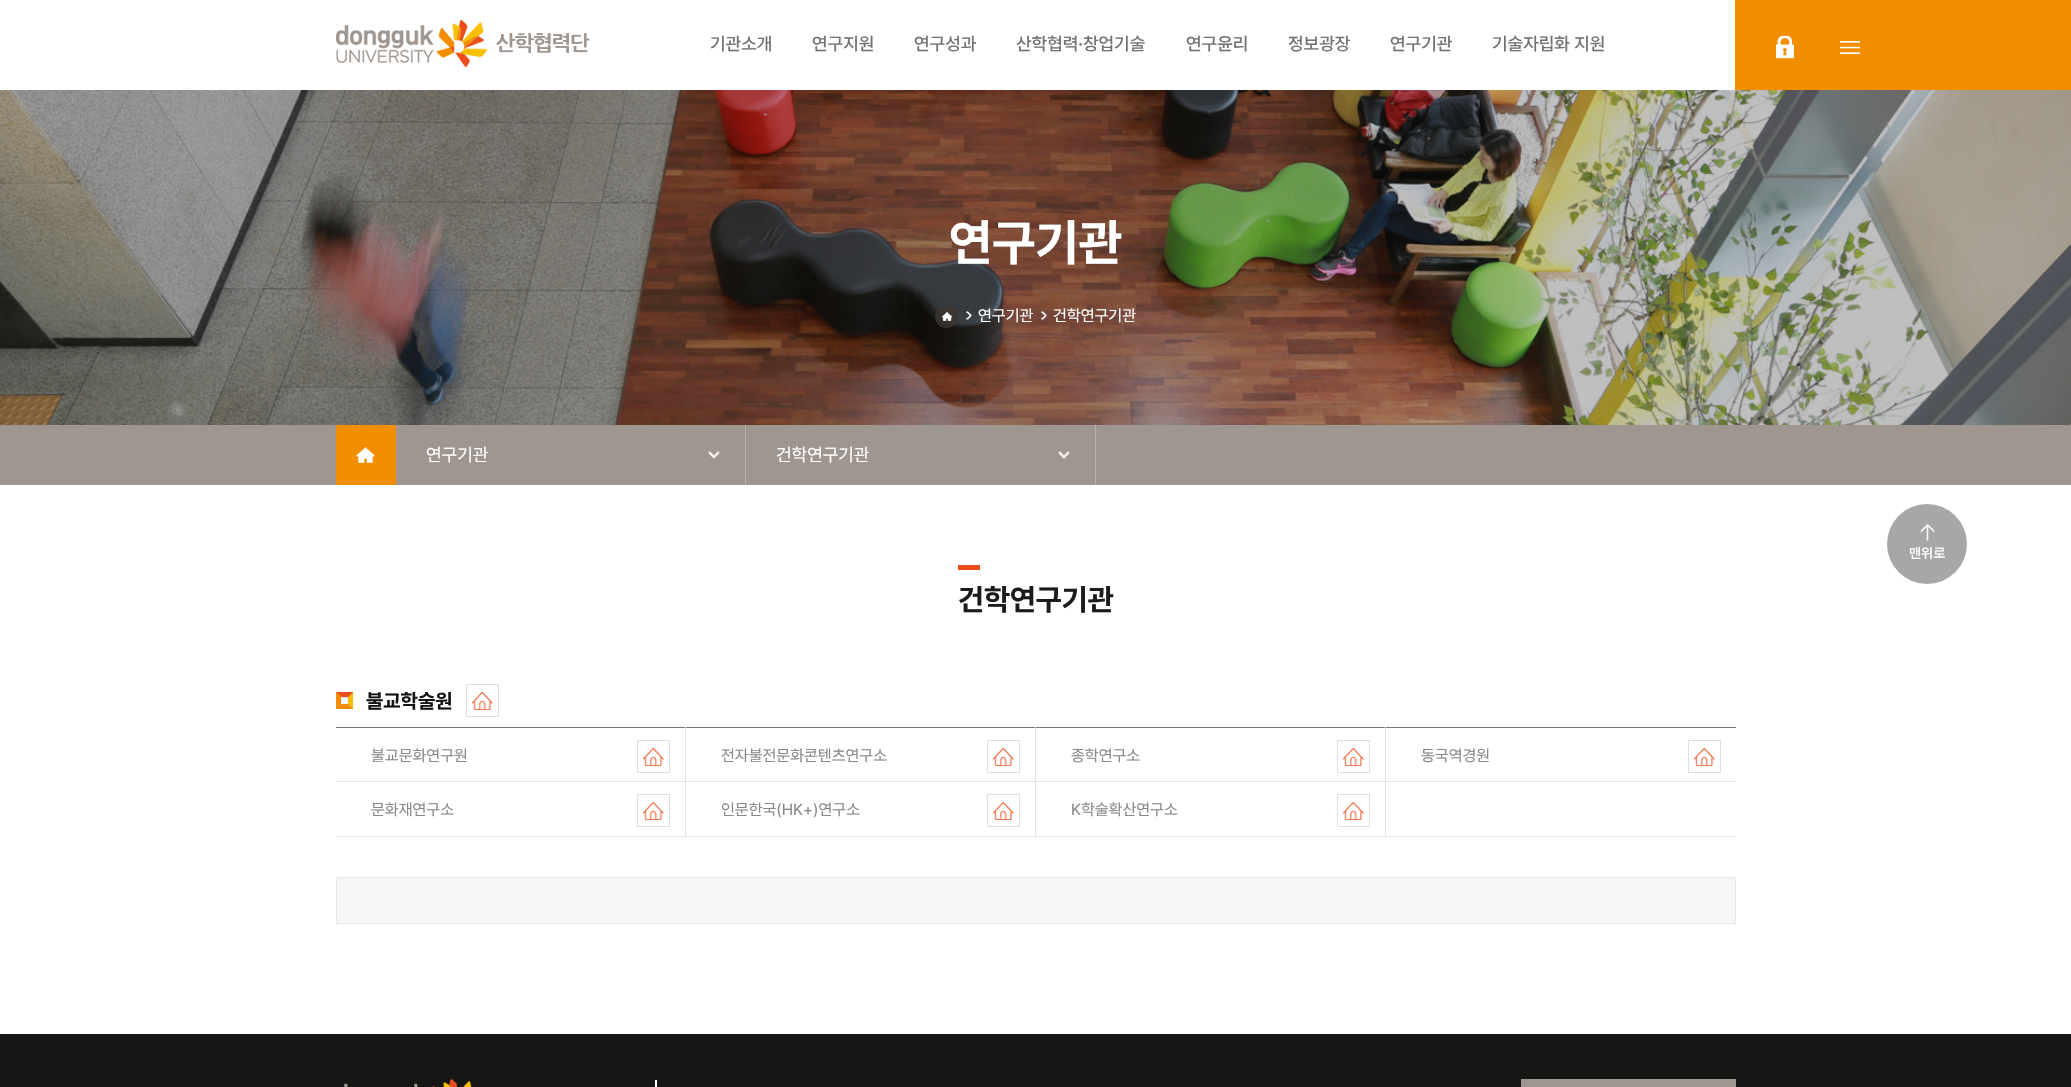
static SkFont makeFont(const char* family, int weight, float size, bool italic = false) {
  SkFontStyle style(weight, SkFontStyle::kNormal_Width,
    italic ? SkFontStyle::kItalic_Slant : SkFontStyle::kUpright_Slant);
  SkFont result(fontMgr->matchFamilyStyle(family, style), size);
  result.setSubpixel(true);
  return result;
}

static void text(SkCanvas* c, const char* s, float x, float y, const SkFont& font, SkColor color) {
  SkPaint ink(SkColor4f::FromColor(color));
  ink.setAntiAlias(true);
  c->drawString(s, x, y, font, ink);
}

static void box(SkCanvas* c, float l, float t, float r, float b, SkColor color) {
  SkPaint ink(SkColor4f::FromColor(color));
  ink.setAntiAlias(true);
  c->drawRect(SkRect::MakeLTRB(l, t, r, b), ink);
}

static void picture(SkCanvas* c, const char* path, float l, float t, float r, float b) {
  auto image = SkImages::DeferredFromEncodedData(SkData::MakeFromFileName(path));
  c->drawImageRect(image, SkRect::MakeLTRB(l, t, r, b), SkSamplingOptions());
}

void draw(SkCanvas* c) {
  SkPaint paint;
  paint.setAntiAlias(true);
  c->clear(0xffffffff);
  picture(c, "img_01.png", 336, 20, 590, 68);
  SkFont face1 = makeFont("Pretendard", 500, 18);
  text(c, "기관소개", 710, 50, face1, 0xff737271);
  text(c, "연구지원", 812, 50, face1, 0xff737271);
  text(c, "연구성과", 914, 50, face1, 0xff737271);
  text(c, "산학협력·창업기술", 1016, 50, face1, 0xff737271);
  text(c, "연구윤리", 1186, 50, face1, 0xff737271);
  text(c, "정보광장", 1288, 50, face1, 0xff737271);
  text(c, "연구기관", 1390, 50, face1, 0xff737271);
  text(c, "기술자립화 지원", 1492, 50, face1, 0xff737271);
  box(c, 1735, 0, 2071, 90, 0xfff28e00);
  picture(c, "img_02.png", 1776, 35, 1794, 59);
  picture(c, "img_03.png", 1840, 41, 1860, 54);
  picture(c, "img_04.png", 0, 90, 2071, 425);
  SkFont face2 = makeFont("Pretendard", 700, 50);
  text(c, "연구기관", 949, 260, face2, 0xffffffff);
  picture(c, "img_05.png", 935, 305, 958, 328);
  picture(c, "img_06.png", 966, 311, 972, 320);
  SkFont face3 = makeFont("Pretendard", 400, 16);
  text(c, "연구기관", 978, 321, face3, 0xffffffff);
  picture(c, "img_07.png", 1041, 311, 1047, 320);
  text(c, "건학연구기관", 1053, 321, face3, 0xffffffff);
  box(c, 0, 425, 2071, 485, 0xffa09690);
  box(c, 336, 425, 396, 485, 0xfff28e00);
  picture(c, "img_08.png", 356, 447, 375, 463);
  box(c, 745, 425, 746, 485, 0xffbbb2ac);
  SkFont face4 = makeFont("Pretendard", 400, 18);
  text(c, "연구기관", 426, 461, face4, 0xffffffff);
  picture(c, "img_09.png", 708, 451, 720, 459);
  box(c, 1095, 425, 1096, 485, 0xffbbb2ac);
  text(c, "건학연구기관", 776, 461, face4, 0xffffffff);
  picture(c, "img_09.png", 1058, 451, 1070, 459);
  box(c, 958, 565, 980, 570, 0xffe94e1b);
  SkFont face5 = makeFont("Pretendard", 700, 30);
  text(c, "건학연구기관", 958, 610, face5, 0xff1c1a1a);
  picture(c, "img_10.png", 336, 692, 353, 709);
  SkFont face6 = makeFont("Pretendard", 700, 20);
  text(c, "불교학술원", 366, 708, face6, 0xff151414);
  picture(c, "img_11.png", 472, 692, 493, 710);
  paint.setStyle(SkPaint::kStroke_Style);
  paint.setStrokeWidth(1);
  paint.setColor(0xffdfdfdf);
  c->drawRect(SkRect::MakeLTRB(466.5f, 684.5f, 498.5f, 716.5f), paint);
  box(c, 336, 727, 1736, 728, 0xff777777);
  box(c, 685, 727, 686, 837, 0xffe3e3e3);
  box(c, 336, 781, 686, 782, 0xffe3e3e3);
  text(c, "불교문화연구원", 371, 761, face3, 0xff888888);
  picture(c, "img_11.png", 643, 748, 664, 766);
  c->drawRect(SkRect::MakeLTRB(637.5f, 740.5f, 669.5f, 772.5f), paint);
  box(c, 1035, 727, 1036, 837, 0xffe3e3e3);
  box(c, 686, 781, 1036, 782, 0xffe3e3e3);
  text(c, "전자불전문화콘텐츠연구소", 721, 761, face3, 0xff888888);
  picture(c, "img_11.png", 993, 748, 1014, 766);
  c->drawRect(SkRect::MakeLTRB(987.5f, 740.5f, 1019.5f, 772.5f), paint);
  box(c, 1385, 727, 1386, 837, 0xffe3e3e3);
  box(c, 1036, 781, 1736, 782, 0xffe3e3e3);
  text(c, "종학연구소", 1071, 761, face3, 0xff888888);
  picture(c, "img_11.png", 1343, 748, 1364, 766);
  c->drawRect(SkRect::MakeLTRB(1337.5f, 740.5f, 1369.5f, 772.5f), paint);
  text(c, "동국역경원", 1421, 761, face3, 0xff888888);
  picture(c, "img_11.png", 1694, 748, 1715, 766);
  c->drawRect(SkRect::MakeLTRB(1688.5f, 740.5f, 1720.5f, 772.5f), paint);
  box(c, 336, 836, 1736, 837, 0xffe3e3e3);
  text(c, "문화재연구소", 371, 815, face3, 0xff888888);
  picture(c, "img_11.png", 643, 802, 664, 820);
  c->drawRect(SkRect::MakeLTRB(637.5f, 794.5f, 669.5f, 826.5f), paint);
  text(c, "인문한국(HK+)연구소", 721, 815, face3, 0xff888888);
  picture(c, "img_11.png", 993, 802, 1014, 820);
  c->drawRect(SkRect::MakeLTRB(987.5f, 794.5f, 1019.5f, 826.5f), paint);
  text(c, "K학술확산연구소", 1071, 815, face3, 0xff888888);
  picture(c, "img_11.png", 1343, 802, 1364, 820);
  c->drawRect(SkRect::MakeLTRB(1337.5f, 794.5f, 1369.5f, 826.5f), paint);
  paint.setColor(0xffe8e8e8);
  c->drawRect(SkRect::MakeLTRB(336.5f, 877.5f, 1735.5f, 923.5f), paint);
  box(c, 337, 878, 1735, 923, 0xfff6f6f7);
  box(c, 0, 1034, 2071, 1087, 0xff161615);
  paint.setStyle(SkPaint::kFill_Style);
  paint.setColor(0xffa7a7a7);
  c->drawCircle(1927, 544, 40, paint);
  picture(c, "img_12.png", 1920, 524, 1935, 541);
  SkFont face7 = makeFont("Pretendard", 500, 14);
  text(c, "맨위로", 1909, 558, face7, 0xffffffff);
  picture(c, "img_13.png", 344, 1079, 472, 1087);
  box(c, 655, 1080, 657, 1087, 0xffffffff);
  box(c, 1521, 1079, 1736, 1087, 0xffa09690);
}
